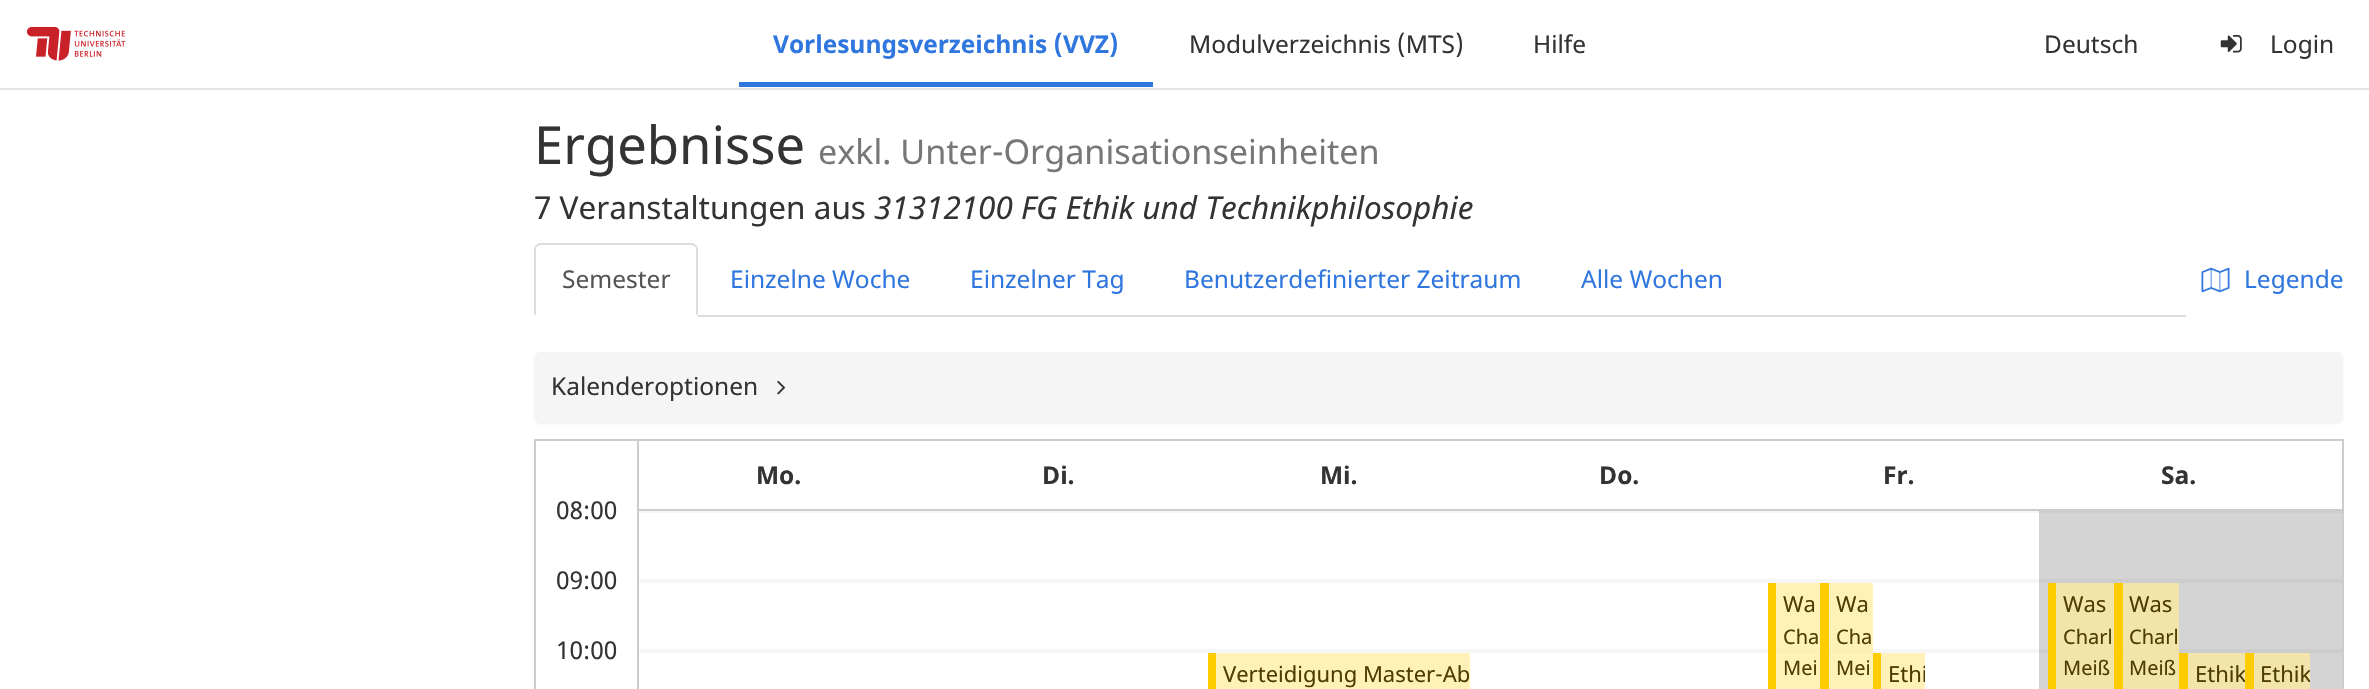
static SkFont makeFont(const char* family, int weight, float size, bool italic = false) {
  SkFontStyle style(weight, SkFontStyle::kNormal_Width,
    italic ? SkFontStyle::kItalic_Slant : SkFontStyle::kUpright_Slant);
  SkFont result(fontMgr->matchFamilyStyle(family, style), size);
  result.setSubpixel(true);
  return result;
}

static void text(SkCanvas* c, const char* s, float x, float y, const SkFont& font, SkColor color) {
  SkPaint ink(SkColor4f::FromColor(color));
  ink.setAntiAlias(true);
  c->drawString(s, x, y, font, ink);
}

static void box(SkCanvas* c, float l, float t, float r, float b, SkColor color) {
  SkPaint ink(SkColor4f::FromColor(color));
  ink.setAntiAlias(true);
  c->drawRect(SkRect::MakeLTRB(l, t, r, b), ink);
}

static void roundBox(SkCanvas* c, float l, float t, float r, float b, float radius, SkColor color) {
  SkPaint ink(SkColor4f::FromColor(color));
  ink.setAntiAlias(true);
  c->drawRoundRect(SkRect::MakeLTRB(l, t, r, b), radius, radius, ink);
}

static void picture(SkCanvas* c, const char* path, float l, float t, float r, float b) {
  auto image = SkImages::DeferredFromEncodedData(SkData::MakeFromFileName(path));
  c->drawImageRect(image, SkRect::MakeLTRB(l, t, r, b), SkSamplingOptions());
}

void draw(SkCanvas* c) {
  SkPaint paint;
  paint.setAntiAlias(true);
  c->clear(0xffffffff);
  box(c, 1829, 583, 1873, 689, 0xfffff1b8);
  box(c, 1776, 583, 1820, 689, 0xfffff1b8);
  picture(c, "img_01.png", 26, 26, 126, 61);
  box(c, 739, 82, 1153, 87, 0xff2f76df);
  SkFont face1 = makeFont("Noto Sans", 700, 24.5f);
  text(c, "Vorlesungsverzeichnis (VVZ)", 773, 53, face1, 0xff2f76df);
  SkFont face2 = makeFont("Noto Sans", 400, 24.5f);
  text(c, "Modulverzeichnis (MTS)", 1189, 53, face2, 0xff333333);
  text(c, "Hilfe", 1533, 53, face2, 0xff333333);
  text(c, "Deutsch", 2044, 53, face2, 0xff333333);
  picture(c, "img_02.png", 2220, 35, 2242, 53);
  text(c, "Login", 2270, 53, face2, 0xff333333);
  box(c, 0, 88, 2369, 90, 0xffe5e5e5);
  SkFont face3 = makeFont("Noto Sans", 400, 52.5f);
  text(c, "Ergebnisse", 534, 164, face3, 0xff333333);
  SkFont face4 = makeFont("Noto Sans", 400, 34.1f);
  text(c, "exkl. Unter-Organisationseinheiten", 818, 164, face4, 0xff777777);
  SkFont face5 = makeFont("Noto Sans", 400, 31.5f);
  text(c, "7 Veranstaltungen aus", 534, 219, face5, 0xff333333);
  SkFont face6 = makeFont("Noto Sans", 400, 31.5f, true);
  text(c, "31312100 FG Ethik und Technikphilosophie", 874, 219, face6, 0xff333333);
  box(c, 698, 315, 2186, 317, 0xffdddddd);
  paint.setColor(0xffdddddd);
  c->drawPath(SkPathBuilder().moveTo(541, 245).cubicTo(539, 245, 538, 246, 537, 247).lineTo(536, 245).lineTo(539, 243).lineTo(693, 243).lineTo(696, 245).lineTo(695, 247).cubicTo(694, 246, 693, 245, 691, 245).close().detach(), paint);
  c->drawPath(SkPathBuilder().moveTo(696, 245).cubicTo(697, 246, 698, 248, 698, 250).lineTo(698, 316).lineTo(696, 314).lineTo(696, 250).cubicTo(696, 249, 696, 247, 695, 247).close().detach(), paint);
  c->drawPath(SkPathBuilder().moveTo(534, 316).lineTo(534, 250).cubicTo(534, 248, 535, 246, 536, 245).lineTo(537, 247).cubicTo(536, 247, 536, 249, 536, 250).lineTo(536, 314).close().detach(), paint);
  text(c, "Semester", 562, 288, face2, 0xff555555);
  text(c, "Einzelne Woche", 730, 288, face2, 0xff2f76df);
  text(c, "Einzelner Tag", 970, 288, face2, 0xff2f76df);
  text(c, "Benutzerdefinierter Zeitraum", 1184, 288, face2, 0xff2f76df);
  text(c, "Alle Wochen", 1581, 288, face2, 0xff2f76df);
  picture(c, "img_03.png", 2201, 267, 2230, 293);
  text(c, "Legende", 2244, 288, face2, 0xff2f76df);
  paint.setColor(0x0d000000);
  paint.setMaskFilter(SkMaskFilter::MakeBlur(kNormal_SkBlurStyle, 1));
  c->drawRoundRect(SkRect::MakeLTRB(534, 354, 2343, 424), 7, 7, paint);
  paint.setMaskFilter(nullptr);
  roundBox(c, 534, 352, 2343, 422, 7, 0xfff5f5f5);
  text(c, "Kalenderoptionen", 551, 395, face2, 0xff333333);
  picture(c, "img_04.png", 777, 380, 786, 395);
  paint.setStyle(SkPaint::kStroke_Style);
  paint.setStrokeWidth(2);
  paint.setColor(0xffcccccc);
  c->drawRect(SkRect::MakeLTRB(535, 440, 638, 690), paint);
  text(c, "08:00", 556, 519, face2, 0xff333333);
  text(c, "09:00", 556, 589, face2, 0xff333333);
  text(c, "10:00", 556, 659, face2, 0xff333333);
  box(c, 639, 439, 2343, 441, 0xffcccccc);
  box(c, 2342, 439, 2344, 689, 0xffcccccc);
  box(c, 639, 509, 2342, 511, 0xffcccccc);
  text(c, "Mo.", 756, 484, face1, 0xff333333);
  box(c, 639, 511, 2039, 513, 0xfff6f6f6);
  box(c, 639, 579, 919, 583, 0xfff6f6f6);
  box(c, 639, 649, 919, 653, 0xfff6f6f6);
  text(c, "Di.", 1042, 484, face1, 0xff333333);
  box(c, 919, 579, 1199, 583, 0xfff6f6f6);
  box(c, 919, 649, 1199, 653, 0xfff6f6f6);
  text(c, "Mi.", 1320, 484, face1, 0xff333333);
  box(c, 1199, 579, 1479, 583, 0xfff6f6f6);
  box(c, 1199, 649, 1479, 653, 0xfff6f6f6);
  box(c, 1216, 653, 1470, 689, 0xfffff1b8);
  box(c, 1208, 653, 1216, 689, 0xffffcc00);
  SkFont face7 = makeFont("Noto Sans", 400, 22);
  text(c, "Verteidigung Master-Ab", 1223, 682, face7, 0xff4d3d00);
  text(c, "Do.", 1599, 484, face1, 0xff333333);
  box(c, 1479, 579, 1759, 583, 0xfff6f6f6);
  box(c, 1479, 649, 1759, 653, 0xfff6f6f6);
  text(c, "Fr.", 1883, 484, face1, 0xff333333);
  box(c, 1759, 579, 2039, 583, 0xfff6f6f6);
  box(c, 1759, 649, 2039, 653, 0xfff6f6f6);
  box(c, 1829, 649, 1873, 653, 0xfffceeb5);
  box(c, 1768, 649, 1820, 653, 0xfffceeb5);
  box(c, 1768, 583, 1776, 689, 0xffffcc00);
  text(c, "Wa", 1783, 612, face7, 0xff4d3d00);
  SkFont face8 = makeFont("Noto Sans", 400, 20);
  text(c, "Cha", 1783, 644, face8, 0xff4d3d00);
  text(c, "Mei", 1783, 675, face8, 0xff4d3d00);
  box(c, 1820, 583, 1829, 689, 0xffffcc00);
  text(c, "Wa", 1836, 612, face7, 0xff4d3d00);
  text(c, "Cha", 1836, 644, face8, 0xff4d3d00);
  text(c, "Mei", 1836, 675, face8, 0xff4d3d00);
  box(c, 1881, 653, 1925, 689, 0xfffff1b8);
  box(c, 1873, 653, 1881, 689, 0xffffcc00);
  c->save();
  c->clipRect(SkRect::MakeLTRB(1881, 653, 1925, 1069));
  text(c, "Ethi", 1888, 682, face7, 0xff4d3d00);
  c->restore();
  text(c, "Sa.", 2161, 484, face1, 0xff333333);
  box(c, 2039, 513, 2342, 689, 0xffd4d4d4);
  box(c, 2123, 583, 2179, 689, 0xfff2e4ab);
  box(c, 2056, 583, 2114, 689, 0xfff2e4ab);
  box(c, 2039, 511, 2342, 513, 0xffcdcdcd);
  box(c, 2039, 579, 2319, 583, 0xffcdcdcd);
  box(c, 2039, 649, 2319, 653, 0xffcdcdcd);
  box(c, 2123, 649, 2179, 653, 0xfff0e2a9);
  box(c, 2048, 649, 2114, 653, 0xfff0e2a9);
  box(c, 2048, 583, 2056, 689, 0xffffcc00);
  text(c, "Was", 2063, 612, face7, 0xff4d3d00);
  text(c, "Charl", 2063, 644, face8, 0xff4d3d00);
  text(c, "Meiß", 2063, 675, face8, 0xff4d3d00);
  box(c, 2114, 583, 2123, 689, 0xffffcc00);
  text(c, "Was", 2129, 612, face7, 0xff4d3d00);
  text(c, "Charl", 2129, 644, face8, 0xff4d3d00);
  text(c, "Meiß", 2129, 675, face8, 0xff4d3d00);
  box(c, 2188, 653, 2245, 689, 0xfff2e4ab);
  box(c, 2179, 653, 2188, 689, 0xffffcc00);
  text(c, "Ethik", 2195, 682, face7, 0xff4d3d00);
  box(c, 2254, 653, 2310, 689, 0xfff2e4ab);
  box(c, 2245, 653, 2254, 689, 0xffffcc00);
  c->save();
  c->clipRect(SkRect::MakeLTRB(2254, 653, 2310, 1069));
  text(c, "Ethik", 2260, 682, face7, 0xff4d3d00);
  c->restore();
  box(c, 2319, 579, 2342, 583, 0xffcdcdcd);
  box(c, 2319, 649, 2342, 653, 0xffcdcdcd);
}
